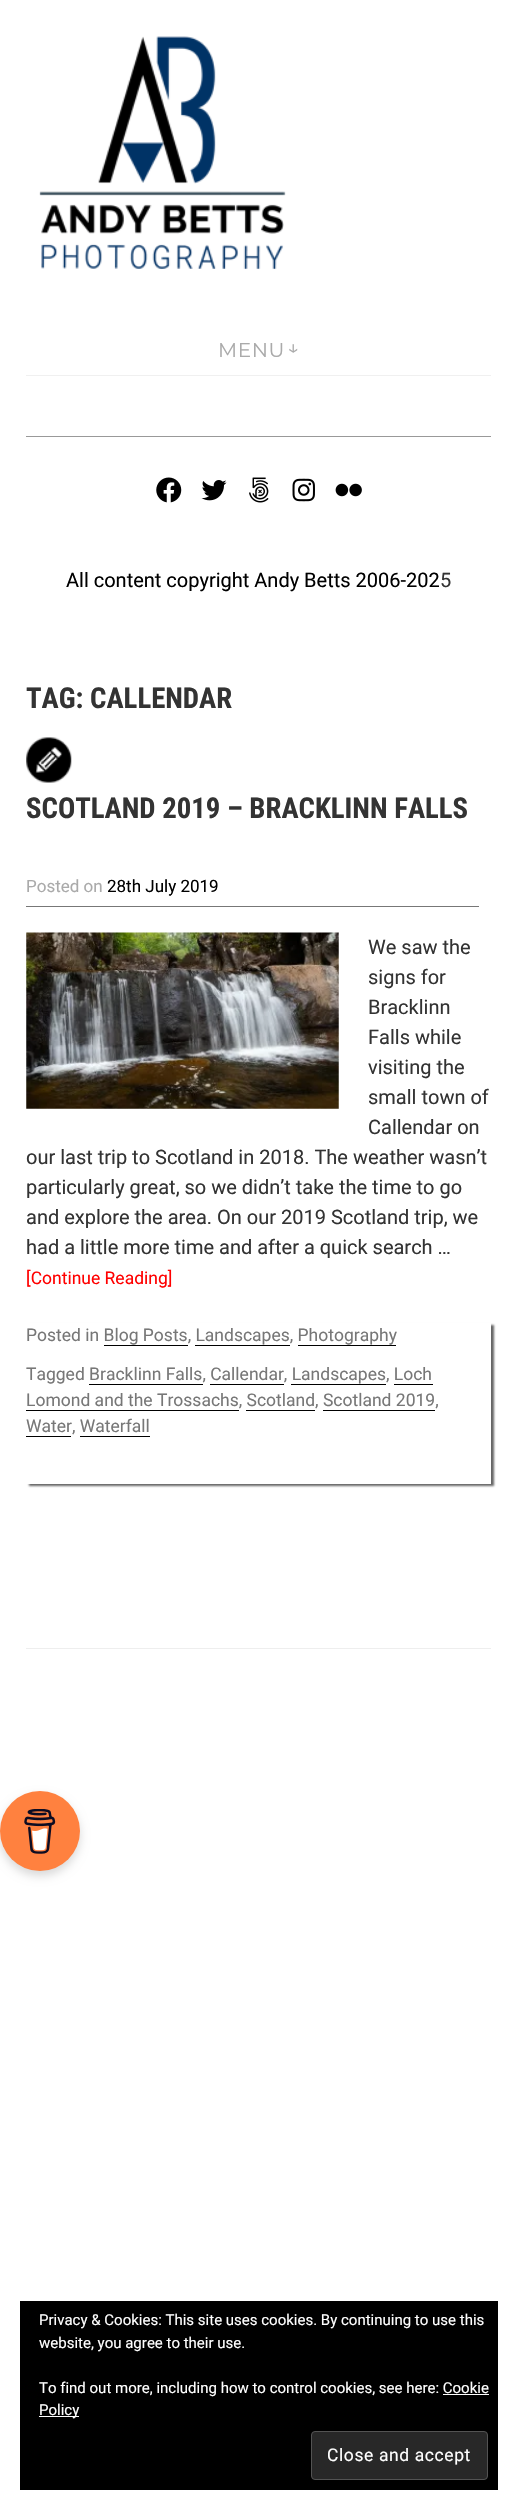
static SkFont makeFont(const char* family, int weight, float size, bool italic = false) {
  SkFontStyle style(weight, SkFontStyle::kNormal_Width,
    italic ? SkFontStyle::kItalic_Slant : SkFontStyle::kUpright_Slant);
  SkFont result(fontMgr->matchFamilyStyle(family, style), size);
  result.setSubpixel(true);
  return result;
}

static void text(SkCanvas* c, const char* s, float x, float y, const SkFont& font, SkColor color) {
  SkPaint ink(SkColor4f::FromColor(color));
  ink.setAntiAlias(true);
  c->drawString(s, x, y, font, ink);
}

static void spacedText(SkCanvas* c, const char* s, float x, float y, const SkFont& font, const SkPaint& ink, float letter, float word) {
  std::vector<SkGlyphID> glyphs(font.countText(s, strlen(s), SkTextEncoding::kUTF8));
  std::vector<float> xs(glyphs.size());
  font.textToGlyphs(s, strlen(s), SkTextEncoding::kUTF8, glyphs);
  font.getXPos(glyphs, xs, x);
  float extra = 0;
  for (size_t i = 0; i < glyphs.size(); i++) {
    xs[i] += extra;
    extra += letter + word * (glyphs[i] == font.unicharToGlyph(' '));
  }
  c->drawTextBlob(SkTextBlob::MakeFromPosHGlyphs(glyphs, xs, y, font), 0, 0, ink);
}

static void box(SkCanvas* c, float l, float t, float r, float b, SkColor color) {
  SkPaint ink(SkColor4f::FromColor(color));
  ink.setAntiAlias(true);
  c->drawRect(SkRect::MakeLTRB(l, t, r, b), ink);
}

static void picture(SkCanvas* c, const char* path, float l, float t, float r, float b) {
  auto image = SkImages::DeferredFromEncodedData(SkData::MakeFromFileName(path));
  c->drawImageRect(image, SkRect::MakeLTRB(l, t, r, b), SkSamplingOptions());
}

void draw(SkCanvas* c) {
  SkPaint paint;
  paint.setAntiAlias(true);
  c->clear(0xffffffff);
  picture(c, "img_01.png", 39, 36, 286, 270);
  box(c, 26, 375, 491, 376, 0xfff0f0f0);
  SkFont face1 = makeFont("Montserrat", 100, 20);
  paint.setColor(0xffaaaaaa);
  spacedText(c, "MENU", 218, 357, face1, paint, 0.6f, 0);
  spacedText(c, "↓", 287, 354, face1, paint, 0.6f, 0);
  box(c, 26, 436, 491, 437, 0xff999999);
  picture(c, "img_02.png", 156, 477, 182, 503);
  picture(c, "img_03.png", 201, 480, 227, 501);
  picture(c, "img_04.png", 249, 477, 269, 503);
  picture(c, "img_05.png", 292, 478, 315, 502);
  picture(c, "img_06.png", 335, 483, 362, 497);
  SkFont face2 = makeFont("Roboto", 400, 20);
  text(c, "All content copyright Andy Betts 2006-202", 66, 587, face2, 0xff000000);
  text(c, "5", 440, 587, face2, 0xff333333);
  SkFont face3 = makeFont("Roboto Condensed", 700, 28.75f);
  text(c, "TAG: CALLENDAR", 26, 708, face3, 0xff333333);
  box(c, 26, 906, 479, 907, 0xff777777);
  picture(c, "img_07.png", 26, 737, 72, 783);
  text(c, "SCOTLAND 2019 – BRACKLINN FALLS", 26, 818, face3, 0xff333333);
  SkFont face4 = makeFont("Roboto", 400, 17);
  text(c, "Posted on", 26, 892, face4, 0xffaaaaaa);
  text(c, "28th July 2019", 107, 892, face4, 0xff000000);
  picture(c, "img_08.png", 26, 932, 339, 1109);
  text(c, "We saw the", 368, 954, face2, 0xff333333);
  text(c, "signs for", 368, 984, face2, 0xff333333);
  text(c, "Bracklinn", 368, 1014, face2, 0xff333333);
  text(c, "Falls while", 368, 1044, face2, 0xff333333);
  text(c, "visiting the", 368, 1074, face2, 0xff333333);
  text(c, "small town of", 368, 1104, face2, 0xff333333);
  text(c, "Callendar on", 368, 1134, face2, 0xff333333);
  text(c, "our last trip to Scotland in 2018. The weather wasn’t", 26, 1164, face2, 0xff333333);
  text(c, "particularly great, so we didn’t take the time to go", 26, 1194, face2, 0xff333333);
  text(c, "and explore the area. On our 2019 Scotland trip, we", 26, 1224, face2, 0xff333333);
  text(c, "had a little more time and after a quick search …", 26, 1254, face2, 0xff333333);
  SkFont face5 = makeFont("Roboto", 400, 17.5f);
  text(c, "[Continue Reading]", 26, 1284, face5, 0xffff0000);
  c->save();
  c->clipPath(SkPathBuilder(SkPathFillType::kEvenOdd).moveTo(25, 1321).lineTo(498, 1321).lineTo(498, 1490).lineTo(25, 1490).close().moveTo(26, 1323).lineTo(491, 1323).lineTo(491, 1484).lineTo(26, 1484).close().detach(), true);
  paint.setColor(0x99000000);
  paint.setMaskFilter(SkMaskFilter::MakeBlur(kNormal_SkBlurStyle, 1));
  c->drawRect(SkRect::MakeLTRB(29, 1325, 494, 1486), paint);
  paint.setMaskFilter(nullptr);
  c->restore();
  text(c, "Posted in Blog Posts, Landscapes, Photography", 26, 1341, face5, 0xff777777);
  box(c, 104, 1345, 188, 1346, 0xff000000);
  box(c, 195, 1345, 290, 1346, 0xff000000);
  box(c, 298, 1345, 396, 1346, 0xff000000);
  text(c, "Tagged Bracklinn Falls, Callendar, Landscapes, Loch", 26, 1380, face5, 0xff777777);
  box(c, 89, 1384, 203, 1385, 0xff000000);
  box(c, 210, 1384, 284, 1385, 0xff000000);
  box(c, 291, 1384, 386, 1385, 0xff000000);
  text(c, "Lomond and the Trossachs, Scotland, Scotland 2019,", 26, 1406, face5, 0xff777777);
  box(c, 394, 1384, 433, 1385, 0xff000000);
  box(c, 26, 1410, 239, 1411, 0xff000000);
  box(c, 246, 1410, 315, 1411, 0xff000000);
  box(c, 323, 1410, 435, 1411, 0xff000000);
  text(c, "Water, Waterfall", 26, 1432, face5, 0xff777777);
  box(c, 26, 1436, 71, 1437, 0xff000000);
  box(c, 80, 1436, 150, 1437, 0xff000000);
  box(c, 26, 1648, 491, 1649, 0xffeeeeee);
  paint.setColor(0x26000000);
  paint.setMaskFilter(SkMaskFilter::MakeBlur(kNormal_SkBlurStyle, 5));
  c->drawRoundRect(SkRect::MakeLTRB(0, 1796, 80, 1876), 40, 40, paint);
  paint.setMaskFilter(nullptr);
  paint.setColor(0xffff813f);
  c->drawCircle(40, 1831, 40, paint);
  picture(c, "img_09.png", 24, 1809, 56, 1854);
  box(c, 20, 2301, 498, 2490, 0xff000000);
  SkFont face6 = makeFont("Roboto", 400, 15);
  text(c, "Privacy & Cookies: This site uses cookies. By continuing to use this", 39, 2325, face6, 0xffffffff);
  text(c, "website, you agree to their use.", 39, 2348, face6, 0xffffffff);
  text(c, "To find out more, including how to control cookies, see here: Cookie", 39, 2393, face6, 0xffffffff);
  box(c, 39, 2416, 79, 2417, 0xffffffff);
  text(c, "Policy", 39, 2415, face6, 0xffffffff);
  box(c, 443, 2394, 489, 2395, 0xffffffff);
  paint.setColor(0xff282828);
  c->drawRoundRect(SkRect::MakeLTRB(311.5f, 2431.5f, 487.5f, 2479.5f), 3.5f, 3.5f, paint);
  paint.setStyle(SkPaint::kStroke_Style);
  paint.setStrokeWidth(1);
  paint.setColor(0xff535353);
  c->drawRoundRect(SkRect::MakeLTRB(311.5f, 2431.5f, 487.5f, 2479.5f), 3.5f, 3.5f, paint);
  paint.setStyle(SkPaint::kFill_Style);
  paint.setColor(0xffffffff);
  spacedText(c, "Close and accept", 327, 2461, face5, paint, 0.6f, 0);
}
